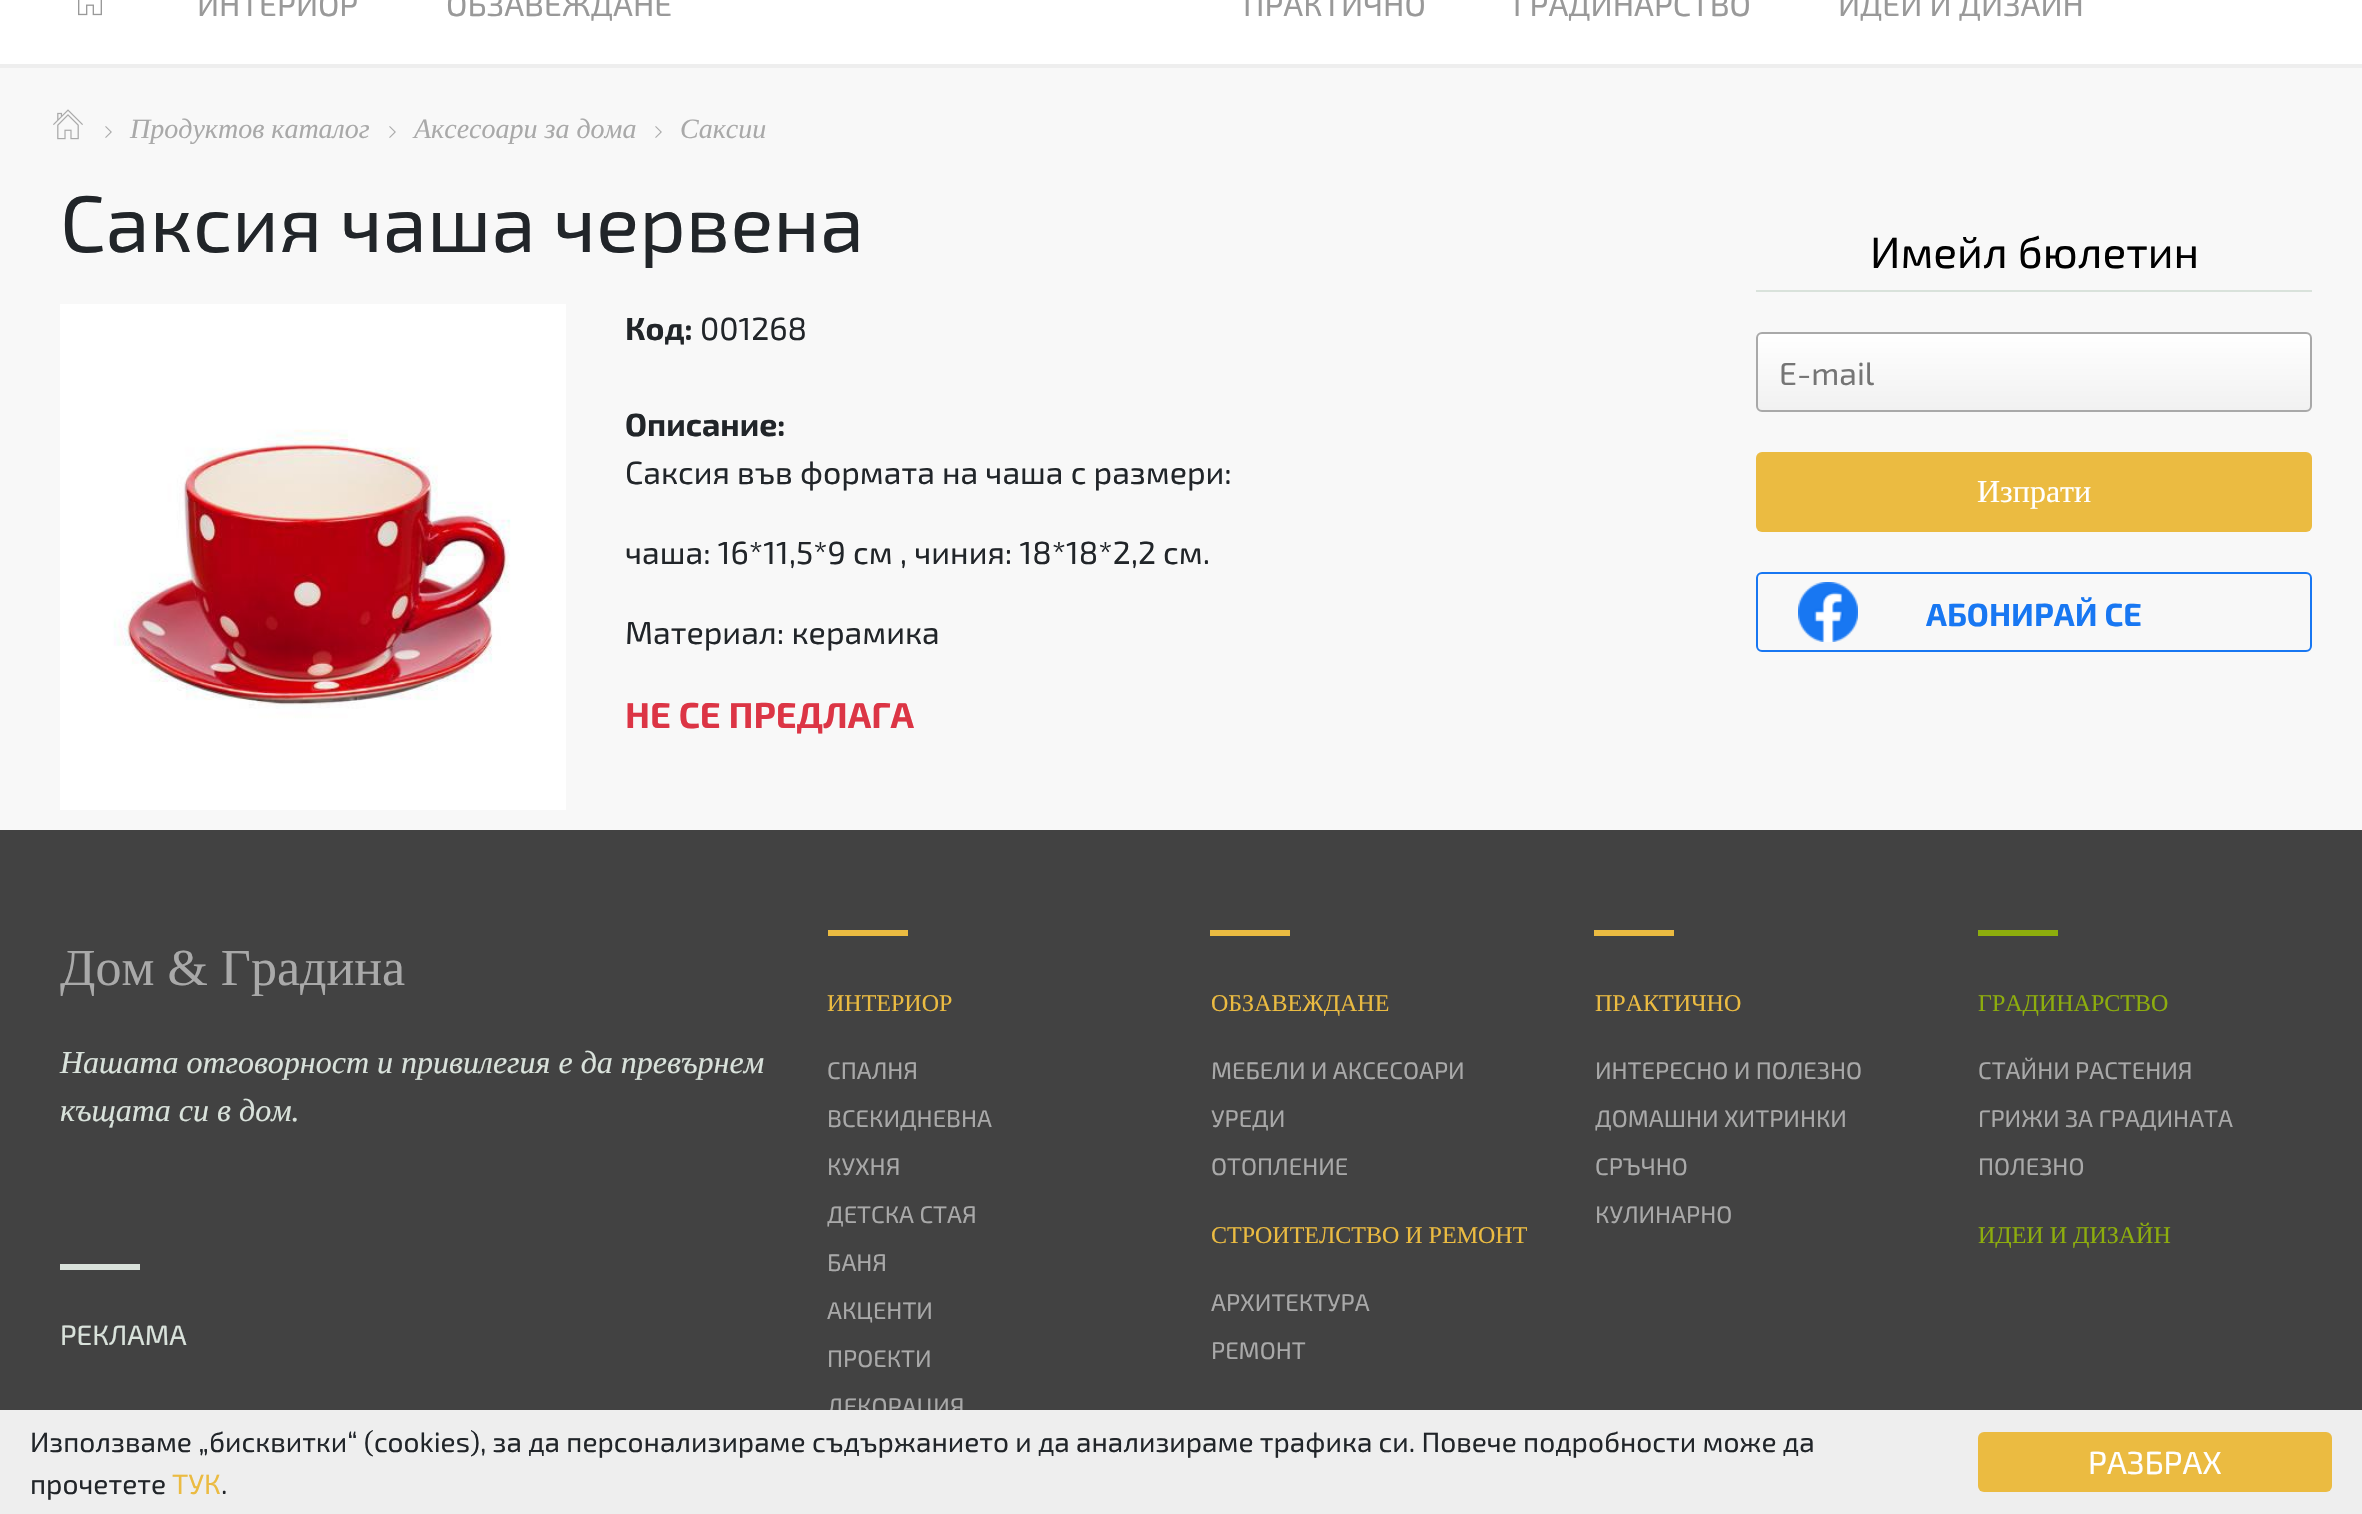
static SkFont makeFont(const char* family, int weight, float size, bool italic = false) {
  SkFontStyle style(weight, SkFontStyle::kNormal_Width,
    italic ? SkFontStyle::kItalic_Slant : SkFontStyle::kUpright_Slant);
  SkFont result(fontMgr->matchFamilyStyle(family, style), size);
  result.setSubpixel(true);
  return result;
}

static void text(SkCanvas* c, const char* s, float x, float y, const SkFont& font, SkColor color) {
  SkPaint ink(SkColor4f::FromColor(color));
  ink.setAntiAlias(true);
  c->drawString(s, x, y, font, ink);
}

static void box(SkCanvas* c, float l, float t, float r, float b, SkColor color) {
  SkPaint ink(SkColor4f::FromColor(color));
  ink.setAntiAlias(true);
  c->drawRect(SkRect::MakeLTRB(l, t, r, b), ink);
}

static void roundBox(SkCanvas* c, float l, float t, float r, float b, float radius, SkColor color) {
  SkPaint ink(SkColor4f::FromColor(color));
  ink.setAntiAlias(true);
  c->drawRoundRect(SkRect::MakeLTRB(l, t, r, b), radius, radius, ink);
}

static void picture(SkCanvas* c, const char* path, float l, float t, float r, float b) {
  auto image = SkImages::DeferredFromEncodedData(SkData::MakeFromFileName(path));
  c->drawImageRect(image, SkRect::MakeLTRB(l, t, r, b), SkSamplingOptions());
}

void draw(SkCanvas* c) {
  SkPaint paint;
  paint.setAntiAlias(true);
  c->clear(0xffffffff);
  box(c, 0, 64, 2362, 68, 0xffeeeeee);
  picture(c, "img_01.png", 78, 0, 102, 16);
  SkFont face1 = makeFont("Exo 2", 400, 32);
  text(c, "ИНТЕРИОР", 197, 16, face1, 0xff999999);
  text(c, "ОБЗАВЕЖДАНЕ", 446, 16, face1, 0xff999999);
  text(c, "ПРАКТИЧНО", 1243, 16, face1, 0xff999999);
  text(c, "ГРАДИНАРСТВО", 1513, 16, face1, 0xff999999);
  text(c, "ИДЕИ И ДИЗАЙН", 1838, 16, face1, 0xff999999);
  box(c, 0, 68, 2362, 830, 0xfff8f8f8);
  picture(c, "img_02.png", 53, 109, 83, 140);
  picture(c, "img_03.png", 105, 126, 112, 138);
  SkFont face2 = makeFont("Liberation Serif", 400, 28, true);
  text(c, "Продуктов каталог", 130, 138, face2, 0xffa9a9a9);
  picture(c, "img_03.png", 389, 126, 396, 138);
  text(c, "Аксесоари за дома", 414, 138, face2, 0xffa9a9a9);
  picture(c, "img_03.png", 655, 126, 662, 138);
  text(c, "Саксии", 680, 138, face2, 0xffa9a9a9);
  SkFont face3 = makeFont("Exo 2", 400, 80);
  text(c, "Саксия чаша червена", 60, 252, face3, 0xff212529);
  picture(c, "img_04.png", 60, 304, 566, 810);
  SkFont face4 = makeFont("Exo 2", 700, 32);
  text(c, "Код:", 625, 340, face4, 0xff212529);
  text(c, "001268", 700, 340, face1, 0xff212529);
  text(c, "Описание:", 625, 436, face4, 0xff212529);
  text(c, "Саксия във формата на чаша с размери:", 625, 484, face1, 0xff212529);
  text(c, "чаша: 16*11,5*9 см , чиния: 18*18*2,2 см.", 625, 564, face1, 0xff212529);
  text(c, "Материал: керамика", 625, 644, face1, 0xff212529);
  SkFont face5 = makeFont("Exo 2", 700, 36);
  text(c, "НЕ СЕ ПРЕДЛАГА", 625, 728, face5, 0xffdc3545);
  box(c, 1756, 290, 2312, 292, 0xffd9e2db);
  SkFont face6 = makeFont("Exo 2", 400, 44);
  text(c, "Имейл бюлетин", 1870, 268, face6, 0xff000000);
  c->save();
  c->clipPath(SkPathBuilder().moveTo(1762, 332).lineTo(2306, 332).cubicTo(2309.5f, 332, 2312, 334.5f, 2312, 338).lineTo(2312, 406).cubicTo(2312, 409.5f, 2309.5f, 412, 2306, 412).lineTo(1762, 412).cubicTo(1758.5f, 412, 1756, 409.5f, 1756, 406).lineTo(1756, 338).cubicTo(1756, 334.5f, 1758.5f, 332, 1762, 332).close().detach(), true);
  {
    const SkColor colors[] = {0xffffffff, 0xfff1f1f1};
    const float stops[] = {0, 1};
    const SkPoint ends[] = {{2034, 334}, {2034, 410}};
    paint.setShader(SkGradientShader::MakeLinear(ends, colors, stops, 2, SkTileMode::kClamp));
    paint.setAlpha(255);
  }
  c->drawRect(SkRect::MakeLTRB(1756, 334, 2312, 410), paint);
  c->restore();
  paint.setStyle(SkPaint::kStroke_Style);
  paint.setStrokeWidth(2);
  paint.setShader(nullptr);
  paint.setColor(0xffa9a9a9);
  c->drawRoundRect(SkRect::MakeLTRB(1757, 333, 2311, 411), 5, 5, paint);
  text(c, "E-mail", 1779, 385, face1, 0xff757575);
  roundBox(c, 1756, 452, 2312, 532, 6, 0xffebbb41);
  SkFont face7 = makeFont("Liberation Serif", 400, 32);
  text(c, "Изпрати", 1977, 502, face7, 0xffffffff);
  picture(c, "img_05.png", 1798, 582, 1858, 642);
  paint.setColor(0xff1877f2);
  c->drawRoundRect(SkRect::MakeLTRB(1757, 573, 2311, 651), 5, 5, paint);
  text(c, "АБОНИРАЙ СЕ", 1926, 626, face4, 0xff1877f2);
  box(c, 0, 830, 2362, 1410, 0xff424242);
  SkFont face8 = makeFont("Liberation Serif", 400, 52);
  text(c, "Дом & Градина", 60, 985, face8, 0xffa9a9a9);
  SkFont face9 = makeFont("Liberation Serif", 400, 32, true);
  text(c, "Нашата отговорност и привилегия е да превърнем", 60, 1073, face9, 0xffd9e2db);
  text(c, "къщата си в дом.", 60, 1121, face9, 0xffd9e2db);
  box(c, 60, 1264, 140, 1270, 0xffd9e2db);
  SkFont face10 = makeFont("Exo 2", 400, 28);
  text(c, "РЕКЛАМА", 60, 1345, face10, 0xffd9e2db);
  box(c, 828, 930, 908, 936, 0xffebbb41);
  SkFont face11 = makeFont("Liberation Serif", 400, 24);
  text(c, "ИНТЕРИОР", 827, 1011, face11, 0xffebbb41);
  SkFont face12 = makeFont("Exo 2", 400, 24);
  text(c, "СПАЛНЯ", 827, 1079, face12, 0xffa9a9a9);
  text(c, "ВСЕКИДНЕВНА", 827, 1127, face12, 0xffa9a9a9);
  text(c, "КУХНЯ", 827, 1175, face12, 0xffa9a9a9);
  text(c, "ДЕТСКА СТАЯ", 827, 1223, face12, 0xffa9a9a9);
  text(c, "БАНЯ", 827, 1271, face12, 0xffa9a9a9);
  text(c, "АКЦЕНТИ", 827, 1319, face12, 0xffa9a9a9);
  text(c, "ПРОЕКТИ", 827, 1367, face12, 0xffa9a9a9);
  text(c, "ДЕКОРАЦИЯ", 827, 1415, face12, 0xffa9a9a9);
  box(c, 1210, 930, 1290, 936, 0xffebbb41);
  text(c, "OБЗАВЕЖДАНЕ", 1211, 1011, face11, 0xffebbb41);
  text(c, "МЕБЕЛИ И АКСЕСОАРИ", 1211, 1079, face12, 0xffa9a9a9);
  text(c, "УРЕДИ", 1211, 1127, face12, 0xffa9a9a9);
  text(c, "ОТОПЛЕНИЕ", 1211, 1175, face12, 0xffa9a9a9);
  text(c, "СТРОИТЕЛСТВО И РЕМОНТ", 1211, 1243, face11, 0xffebbb41);
  text(c, "АРХИТЕКТУРА", 1211, 1311, face12, 0xffa9a9a9);
  text(c, "РЕМОНТ", 1211, 1359, face12, 0xffa9a9a9);
  box(c, 1594, 930, 1674, 936, 0xffebbb41);
  text(c, "ПРАКТИЧНО", 1595, 1011, face11, 0xffebbb41);
  text(c, "ИНТЕРЕСНО И ПОЛЕЗНО", 1595, 1079, face12, 0xffa9a9a9);
  text(c, "ДОМАШНИ ХИТРИНКИ", 1595, 1127, face12, 0xffa9a9a9);
  text(c, "СРЪЧНО", 1595, 1175, face12, 0xffa9a9a9);
  text(c, "КУЛИНАРНО", 1595, 1223, face12, 0xffa9a9a9);
  box(c, 1978, 930, 2058, 936, 0xff8dad0d);
  text(c, "ГРАДИНАРСТВО", 1978, 1011, face11, 0xff8dad0d);
  text(c, "СТАЙНИ РАСТЕНИЯ", 1978, 1079, face12, 0xffa9a9a9);
  text(c, "ГРИЖИ ЗА ГРАДИНАТА", 1978, 1127, face12, 0xffa9a9a9);
  text(c, "ПОЛЕЗНО", 1978, 1175, face12, 0xffa9a9a9);
  text(c, "ИДЕИ И ДИЗАЙН", 1978, 1243, face11, 0xff8dad0d);
  box(c, 0, 1410, 2362, 1514, 0xffeeeeee);
  text(c, "Използваме „бисквитки“ (cookies), за да персонализираме съдържанието и да анализираме трафика си. Повече подробности може да", 30, 1452, face10, 0xff212529);
  text(c, "прочетете", 30, 1494, face10, 0xff212529);
  text(c, "ТУК", 172, 1494, face10, 0xffebbb41);
  text(c, ".", 221, 1494, face10, 0xff212529);
  roundBox(c, 1978, 1432, 2332, 1492, 6, 0xffebbb41);
  text(c, "РАЗБРАХ", 2088, 1474, face1, 0xffffffff);
}
